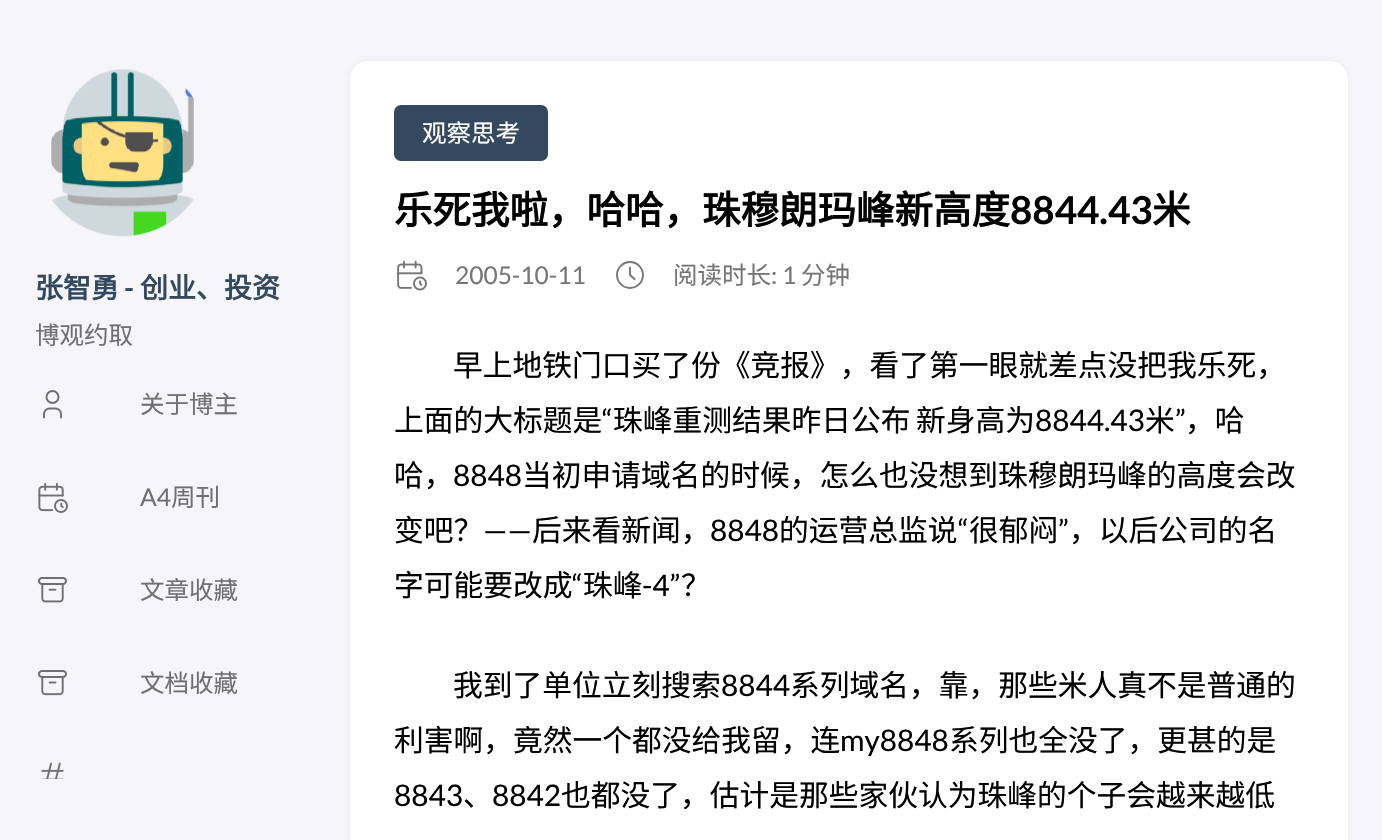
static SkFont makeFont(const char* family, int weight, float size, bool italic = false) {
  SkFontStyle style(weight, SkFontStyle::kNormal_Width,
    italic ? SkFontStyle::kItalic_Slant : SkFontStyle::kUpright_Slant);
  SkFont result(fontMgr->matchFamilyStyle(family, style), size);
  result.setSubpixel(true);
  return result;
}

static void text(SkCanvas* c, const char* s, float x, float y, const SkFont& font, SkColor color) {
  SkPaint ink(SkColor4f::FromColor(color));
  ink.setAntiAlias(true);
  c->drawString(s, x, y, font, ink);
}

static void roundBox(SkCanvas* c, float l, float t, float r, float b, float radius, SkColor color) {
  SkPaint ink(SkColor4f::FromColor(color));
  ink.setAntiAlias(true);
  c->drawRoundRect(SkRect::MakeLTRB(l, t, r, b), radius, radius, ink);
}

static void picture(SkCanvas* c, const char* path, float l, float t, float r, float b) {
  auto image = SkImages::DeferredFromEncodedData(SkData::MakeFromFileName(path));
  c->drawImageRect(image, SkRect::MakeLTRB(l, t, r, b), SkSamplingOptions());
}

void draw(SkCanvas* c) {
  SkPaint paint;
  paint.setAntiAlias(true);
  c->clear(0xfff5f5fa);
  picture(c, "img_01.png", 51, 69, 194, 237);
  SkFont face1 = makeFont("Noto Sans CJK SC", 700, 28);
  text(c, "张智勇", 35, 298, face1, 0xff34495e);
  SkFont face2 = makeFont("Lato", 700, 28);
  text(c, "-", 124, 298, face2, 0xff34495e);
  text(c, "创业、投资", 140, 298, face1, 0xff34495e);
  SkFont face3 = makeFont("Noto Sans CJK SC", 400, 24.5f);
  text(c, "博观约取", 35, 344, face3, 0xff707070);
  paint.setStyle(SkPaint::kStroke_Style);
  paint.setStrokeWidth(1.9f);
  paint.setColor(0xff707070);
  c->drawCircle(52.5f, 397, 6, paint);
  paint.setStrokeCap(SkPaint::kRound_Cap);
  paint.setStrokeJoin(SkPaint::kRound_Join);
  c->drawPath(SkPathBuilder().moveTo(44, 417.5f).lineTo(44, 414.5f).cubicTo(44, 411, 46.5f, 408.5f, 49.5f, 408.5f).lineTo(55.5f, 408.5f).cubicTo(58.5f, 408.5f, 61, 411, 61, 414.5f).lineTo(61, 417.5f).detach(), paint);
  text(c, "关于博主", 140, 413, face3, 0xff707070);
  picture(c, "img_02.png", 38, 482, 68, 513);
  SkFont face4 = makeFont("Lato", 400, 24.5f);
  text(c, "A4", 140, 506, face4, 0xff707070);
  text(c, "周刊", 171, 506, face3, 0xff707070);
  picture(c, "img_03.png", 38, 577, 67, 603);
  text(c, "文章收藏", 140, 599, face3, 0xff707070);
  picture(c, "img_04.png", 38, 670, 67, 696);
  text(c, "文档收藏", 140, 692, face3, 0xff707070);
  picture(c, "img_05.png", 41, 762, 64, 779);
  paint.setStyle(SkPaint::kFill_Style);
  paint.setColor(0x0f000000);
  paint.setMaskFilter(SkMaskFilter::MakeBlur(kNormal_SkBlurStyle, 2));
  c->drawRoundRect(SkRect::MakeLTRB(350, 61, 1348, 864), 18, 18, paint);
  paint.setMaskFilter(nullptr);
  roundBox(c, 350, 61, 1348, 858, 18, 0xffffffff);
  roundBox(c, 394, 105, 548, 161, 7, 0xff34495e);
  text(c, "观察思考", 422, 142, face3, 0xffffffff);
  SkFont face5 = makeFont("Noto Sans CJK SC", 700, 38.5f);
  text(c, "乐死我啦，哈哈，珠穆朗玛峰新高度", 394, 224, face5, 0xff000000);
  SkFont face6 = makeFont("Lato", 700, 38.5f);
  text(c, "8844.43", 1010, 224, face6, 0xff000000);
  text(c, "米", 1152, 224, face5, 0xff000000);
  picture(c, "img_06.png", 397, 260, 427, 291);
  text(c, "2005-10-11", 455, 284, face4, 0xff767676);
  paint.setStyle(SkPaint::kStroke_Style);
  paint.setStrokeCap(SkPaint::kButt_Cap);
  paint.setStrokeJoin(SkPaint::kMiter_Join);
  paint.setColor(0xff767676);
  c->drawCircle(630, 275, 13, paint);
  paint.setStrokeCap(SkPaint::kRound_Cap);
  paint.setStrokeJoin(SkPaint::kRound_Join);
  c->drawPath(SkPathBuilder().moveTo(630, 267.5f).lineTo(630, 275).lineTo(634.5f, 279).detach(), paint);
  text(c, "阅读时长", 673, 284, face3, 0xff767676);
  text(c, ": 1", 771, 284, face4, 0xff767676);
  text(c, "分钟", 801, 284, face3, 0xff767676);
  SkFont face7 = makeFont("Noto Sans CJK SC", 400, 29.75f);
  text(c, "早上地铁门口买了份《竞报》，看了第一眼就差点没把我乐死，", 453, 376, face7, 0xff000000);
  text(c, "上面的大标题是", 394, 431, face7, 0xff000000);
  SkFont face8 = makeFont("Lato", 400, 29.75f);
  text(c, "“", 602, 431, face8, 0xff000000);
  text(c, "珠峰重测结果昨日公布", 613, 431, face7, 0xff000000);
  text(c, "新身高为", 916, 431, face7, 0xff000000);
  text(c, "8844.43", 1035, 431, face8, 0xff000000);
  text(c, "米", 1145, 431, face7, 0xff000000);
  text(c, "”", 1175, 431, face8, 0xff000000);
  text(c, "，哈", 1185, 431, face7, 0xff000000);
  text(c, "哈，", 394, 486, face7, 0xff000000);
  text(c, "8848", 453, 486, face8, 0xff000000);
  text(c, "当初申请域名的时候，怎么也没想到珠穆朗玛峰的高度会改", 522, 486, face7, 0xff000000);
  text(c, "变吧？", 394, 541, face7, 0xff000000);
  text(c, "——", 483, 541, face8, 0xff000000);
  text(c, "后来看新闻，", 532, 541, face7, 0xff000000);
  text(c, "8848", 710, 541, face8, 0xff000000);
  text(c, "的运营总监说", 779, 541, face7, 0xff000000);
  text(c, "“", 958, 541, face8, 0xff000000);
  text(c, "很郁闷", 969, 541, face7, 0xff000000);
  text(c, "”", 1058, 541, face8, 0xff000000);
  text(c, "，以后公司的名", 1069, 541, face7, 0xff000000);
  text(c, "字可能要改成", 394, 596, face7, 0xff000000);
  text(c, "“", 572, 596, face8, 0xff000000);
  text(c, "珠峰", 583, 596, face7, 0xff000000);
  text(c, "-4”", 642, 596, face8, 0xff000000);
  text(c, "？", 681, 596, face7, 0xff000000);
  text(c, "我到了单位立刻搜索", 453, 696, face7, 0xff000000);
  text(c, "8844", 721, 696, face8, 0xff000000);
  text(c, "系列域名，靠，那些米人真不是普通的", 790, 696, face7, 0xff000000);
  text(c, "利害啊，竟然一个都没给我留，连", 394, 751, face7, 0xff000000);
  text(c, "my8848", 840, 751, face8, 0xff000000);
  text(c, "系列也全没了，更甚的是", 949, 751, face7, 0xff000000);
  text(c, "8843", 394, 806, face8, 0xff000000);
  text(c, "、", 463, 806, face7, 0xff000000);
  text(c, "8842", 492, 806, face8, 0xff000000);
  text(c, "也都没了，估计是那些家伙认为珠峰的个子会越来越低", 561, 806, face7, 0xff000000);
}
